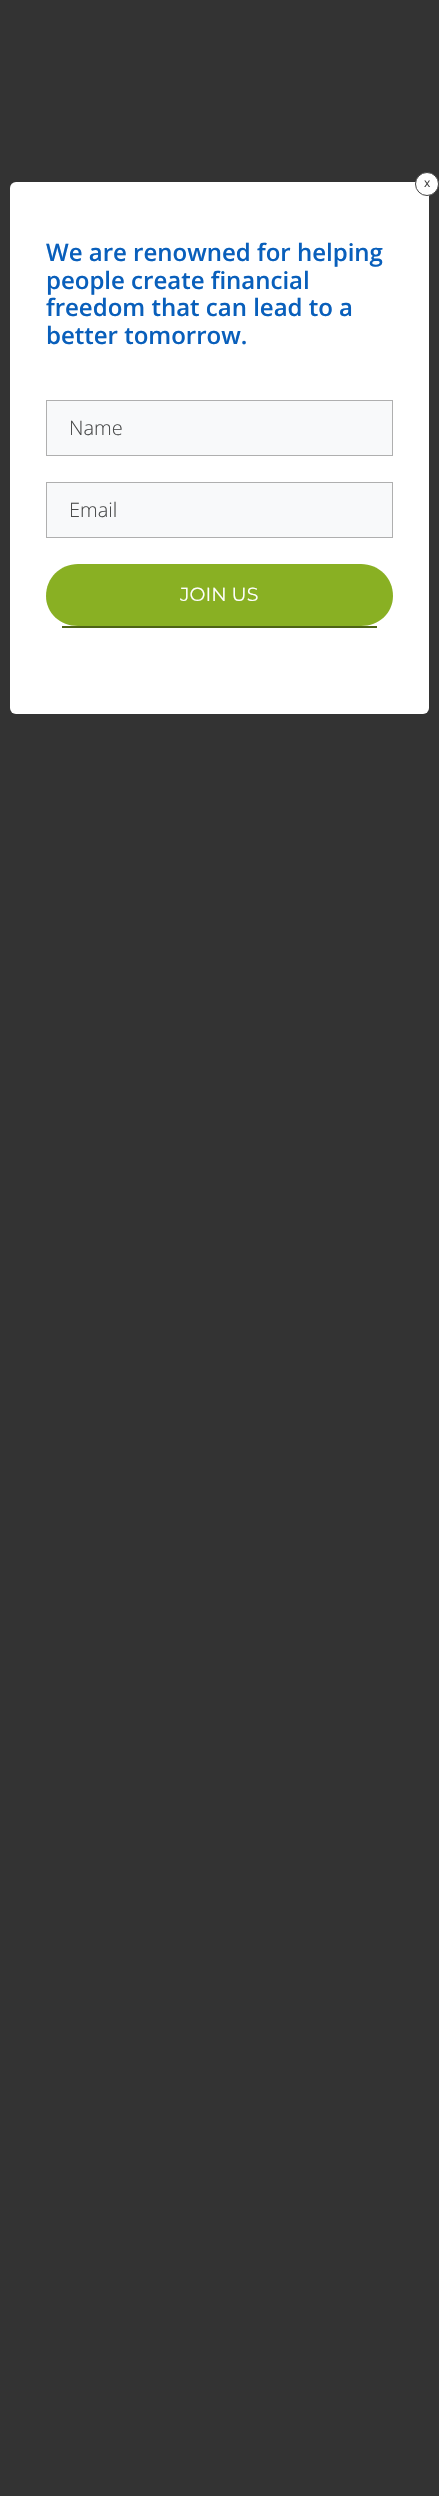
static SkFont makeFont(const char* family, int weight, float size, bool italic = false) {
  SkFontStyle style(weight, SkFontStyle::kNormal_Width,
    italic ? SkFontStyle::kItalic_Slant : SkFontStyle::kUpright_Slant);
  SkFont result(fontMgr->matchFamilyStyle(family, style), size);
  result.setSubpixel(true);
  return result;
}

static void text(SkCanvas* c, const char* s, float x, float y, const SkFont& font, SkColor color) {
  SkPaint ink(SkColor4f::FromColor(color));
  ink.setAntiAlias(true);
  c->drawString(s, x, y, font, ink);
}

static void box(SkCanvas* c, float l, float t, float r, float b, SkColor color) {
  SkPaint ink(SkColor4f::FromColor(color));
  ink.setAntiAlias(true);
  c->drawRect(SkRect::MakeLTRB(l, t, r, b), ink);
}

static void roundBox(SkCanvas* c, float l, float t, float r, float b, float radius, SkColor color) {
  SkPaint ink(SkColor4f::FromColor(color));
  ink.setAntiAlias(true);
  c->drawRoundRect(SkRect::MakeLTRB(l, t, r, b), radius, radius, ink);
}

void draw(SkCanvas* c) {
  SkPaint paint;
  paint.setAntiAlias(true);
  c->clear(0xff333333);
  roundBox(c, 10, 182, 429, 714, 6, 0xffffffff);
  paint.setColor(0xffffffff);
  c->drawCircle(427, 184, 11.5f, paint);
  paint.setStyle(SkPaint::kStroke_Style);
  paint.setStrokeWidth(1);
  paint.setColor(0xff424242);
  c->drawCircle(427, 184, 11.5f, paint);
  SkFont face1 = makeFont("Open Sans", 400, 12);
  text(c, "x", 424, 187, face1, 0xff424242);
  SkFont face2 = makeFont("Open Sans", 600, 24);
  text(c, "We are renowned for helping", 46, 261, face2, 0xff095fbb);
  text(c, "people create financial", 46, 289, face2, 0xff095fbb);
  text(c, "freedom that can lead to a", 46, 316, face2, 0xff095fbb);
  text(c, "better tomorrow.", 46, 344, face2, 0xff095fbb);
  paint.setStyle(SkPaint::kFill_Style);
  paint.setColor(0xfff8f9fa);
  c->drawRect(SkRect::MakeLTRB(46.5f, 400.5f, 392.5f, 455.5f), paint);
  paint.setStyle(SkPaint::kStroke_Style);
  paint.setColor(0xffafafaf);
  c->drawRect(SkRect::MakeLTRB(46.5f, 400.5f, 392.5f, 455.5f), paint);
  SkFont face3 = makeFont("Open Sans", 300, 20);
  text(c, "Name", 69, 435, face3, 0xff4a4b4b);
  paint.setStyle(SkPaint::kFill_Style);
  paint.setColor(0xfff8f9fa);
  c->drawRect(SkRect::MakeLTRB(46.5f, 482.5f, 392.5f, 537.5f), paint);
  paint.setStyle(SkPaint::kStroke_Style);
  paint.setColor(0xffafafaf);
  c->drawRect(SkRect::MakeLTRB(46.5f, 482.5f, 392.5f, 537.5f), paint);
  text(c, "Email", 69, 517, face3, 0xff4a4b4b);
  paint.setStyle(SkPaint::kFill_Style);
  paint.setColor(0xff89b023);
  c->drawPath(SkPathBuilder().moveTo(78, 564).lineTo(361, 564).cubicTo(379, 564, 393, 578, 393, 596).cubicTo(393, 613, 379, 626, 361, 626).lineTo(78, 626).cubicTo(60, 626, 46, 613, 46, 596).cubicTo(46, 578, 60, 564, 78, 564).close().detach(), paint);
  box(c, 62, 626, 377, 628, 0xff4d6315);
  SkFont face4 = makeFont("Montserrat", 400, 19);
  text(c, "JOIN US", 180, 601, face4, 0xffffffff);
}
